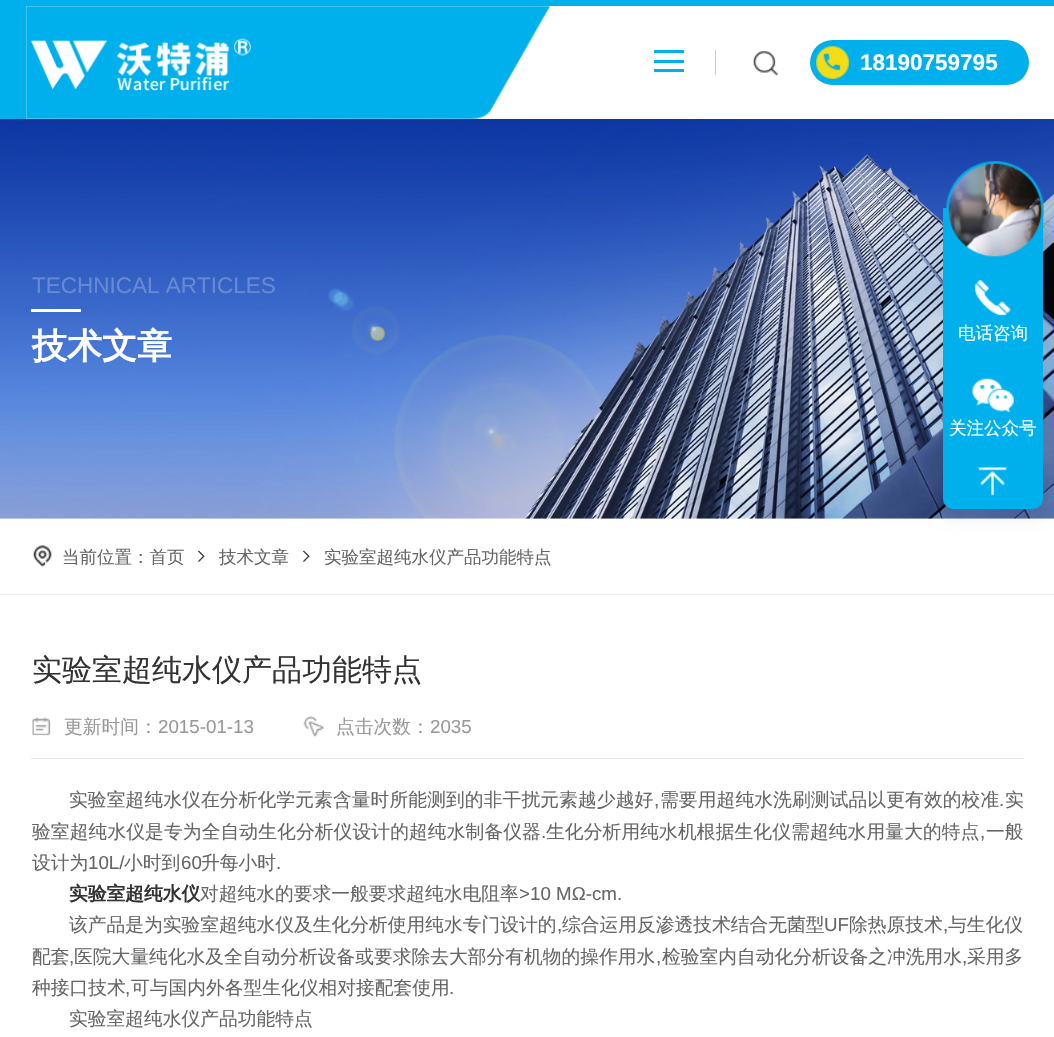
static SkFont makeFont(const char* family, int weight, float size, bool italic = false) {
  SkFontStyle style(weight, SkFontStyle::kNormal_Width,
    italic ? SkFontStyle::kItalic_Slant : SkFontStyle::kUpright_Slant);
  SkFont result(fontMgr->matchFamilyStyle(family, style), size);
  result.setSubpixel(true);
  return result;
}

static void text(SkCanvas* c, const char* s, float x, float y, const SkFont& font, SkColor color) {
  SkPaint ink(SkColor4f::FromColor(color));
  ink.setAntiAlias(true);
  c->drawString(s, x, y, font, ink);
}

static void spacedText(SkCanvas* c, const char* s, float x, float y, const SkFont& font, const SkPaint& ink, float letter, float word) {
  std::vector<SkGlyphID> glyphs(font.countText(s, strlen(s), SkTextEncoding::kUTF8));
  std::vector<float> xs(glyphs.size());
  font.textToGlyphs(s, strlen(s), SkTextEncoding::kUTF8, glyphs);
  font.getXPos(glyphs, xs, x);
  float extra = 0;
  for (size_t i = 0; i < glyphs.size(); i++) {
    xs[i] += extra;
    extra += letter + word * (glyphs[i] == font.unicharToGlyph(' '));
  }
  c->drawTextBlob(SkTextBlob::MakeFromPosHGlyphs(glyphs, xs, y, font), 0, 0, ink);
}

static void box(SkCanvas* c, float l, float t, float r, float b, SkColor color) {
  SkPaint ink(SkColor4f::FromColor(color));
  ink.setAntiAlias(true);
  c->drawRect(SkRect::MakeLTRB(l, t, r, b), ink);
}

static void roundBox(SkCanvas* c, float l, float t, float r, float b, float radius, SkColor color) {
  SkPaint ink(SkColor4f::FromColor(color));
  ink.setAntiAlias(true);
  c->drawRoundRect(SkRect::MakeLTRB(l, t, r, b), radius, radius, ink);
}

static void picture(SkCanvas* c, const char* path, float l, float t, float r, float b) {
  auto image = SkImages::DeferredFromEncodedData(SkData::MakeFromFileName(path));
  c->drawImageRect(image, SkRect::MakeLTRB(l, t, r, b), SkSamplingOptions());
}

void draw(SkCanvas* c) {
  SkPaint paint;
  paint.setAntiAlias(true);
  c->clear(0xffffffff);
  box(c, 0, 0, 1054, 6, 0xff00b0ec);
  box(c, 0, 6, 26, 119, 0xff00b0ec);
  picture(c, "img_01.png", 26, 6, 550, 119);
  picture(c, "img_02.png", 31, 38, 251, 91);
  box(c, 654, 50, 684, 53, 0xff00b0ec);
  box(c, 654, 60, 684, 63, 0xff00b0ec);
  box(c, 654, 69, 684, 72, 0xff00b0ec);
  box(c, 715, 50, 716, 75, 0xffcacaca);
  picture(c, "img_03.png", 753, 51, 778, 76);
  roundBox(c, 810, 40, 1029, 85, 22.5f, 0xff00b0ec);
  picture(c, "img_04.png", 816, 46, 849, 79);
  SkFont face1 = makeFont("Liberation Sans", 700, 22.5f);
  text(c, "18190759795", 860, 70, face1, 0xffffffff);
  picture(c, "img_05.png", 0, 119, 1054, 519);
  SkFont face2 = makeFont("Liberation Sans", 400, 22.5f);
  text(c, "TECHNICAL ARTICLES", 32, 293, face2, 0xff688ad4);
  box(c, 31, 309, 81, 312, 0xffffffff);
  SkFont face3 = makeFont("WenQuanYi Zen Hei", 700, 35);
  text(c, "技术文章", 32, 358, face3, 0xffffffff);
  paint.setColor(0x1a000000);
  paint.setMaskFilter(SkMaskFilter::MakeBlur(kNormal_SkBlurStyle, 7.5f));
  c->drawRoundRect(SkRect::MakeLTRB(943, 215, 1043, 516), 10, 10, paint);
  paint.setMaskFilter(nullptr);
  paint.setColor(0xff00b0ec);
  c->drawPath(SkPathBuilder().moveTo(944.5f, 209.5f).lineTo(1041.5f, 209.5f).lineTo(1041.5f, 499).cubicTo(1041.5f, 503.5f, 1037.5f, 507.5f, 1033, 507.5f).lineTo(953, 507.5f).cubicTo(948.5f, 507.5f, 944.5f, 503.5f, 944.5f, 499).close().detach(), paint);
  paint.setStyle(SkPaint::kStroke_Style);
  paint.setStrokeWidth(3);
  c->drawPath(SkPathBuilder().moveTo(944.5f, 209.5f).lineTo(1041.5f, 209.5f).lineTo(1041.5f, 499).cubicTo(1041.5f, 503.5f, 1037.5f, 507.5f, 1033, 507.5f).lineTo(953, 507.5f).cubicTo(948.5f, 507.5f, 944.5f, 503.5f, 944.5f, 499).close().detach(), paint);
  picture(c, "img_06.png", 946, 161, 1044, 257);
  picture(c, "img_07.png", 974, 279, 1011, 316);
  SkFont face4 = makeFont("WenQuanYi Zen Hei", 500, 17.5f);
  text(c, "电话咨询", 958, 339, face4, 0xffffffff);
  picture(c, "img_08.png", 972, 378, 1014, 413);
  text(c, "关注公众号", 949, 434, face4, 0xffffffff);
  picture(c, "img_09.png", 978, 467, 1007, 496);
  box(c, 0, 594, 1054, 595, 0xffeeeeee);
  picture(c, "img_10.png", 33, 545, 52, 567);
  text(c, "当前位置：首页", 62, 563, face4, 0xff666666);
  picture(c, "img_11.png", 197, 550, 205, 562);
  text(c, "技术文章", 219, 563, face4, 0xff666666);
  picture(c, "img_11.png", 302, 550, 310, 562);
  text(c, "实验室超纯水仪产品功能特点", 324, 563, face4, 0xff666666);
  SkFont face5 = makeFont("WenQuanYi Zen Hei", 500, 30);
  text(c, "实验室超纯水仪产品功能特点", 32, 680, face5, 0xff333333);
  box(c, 31, 758, 1024, 759, 0xffe6e6e6);
  picture(c, "img_12.png", 32, 717, 51, 736);
  SkFont face6 = makeFont("WenQuanYi Zen Hei", 500, 18.75f);
  text(c, "更新时间：", 64, 733, face6, 0xff999999);
  SkFont face7 = makeFont("Liberation Sans", 400, 18.75f);
  text(c, "2015-01-13", 158, 733, face7, 0xff999999);
  picture(c, "img_13.png", 303, 716, 324, 737);
  text(c, "点击次数：", 336, 733, face6, 0xff999999);
  text(c, "2035", 430, 733, face7, 0xff999999);
  paint.setStyle(SkPaint::kFill_Style);
  paint.setColor(0xff666666);
  spacedText(c, "实验室超纯水仪在分析化学元素含量时所能测到的非干扰元素越少越好", 69, 806, face6, paint, 0.1f, 0);
  spacedText(c, ",", 654, 806, face7, paint, 0.1f, 0);
  spacedText(c, "需要用超纯水洗刷测试品以更有效的校准", 660, 806, face6, paint, 0.1f, 0);
  spacedText(c, ".", 999, 806, face7, paint, 0.1f, 0);
  spacedText(c, "实", 1005, 806, face6, paint, 0.1f, 0);
  spacedText(c, "验室超纯水仪是专为全自动生化分析仪设计的超纯水制备仪器", 32, 838, face6, paint, 0.1f, 0);
  spacedText(c, ".", 541, 838, face7, paint, 0.1f, 0);
  spacedText(c, "生化分析用纯水机根据生化仪需超纯水用量大的特点", 546, 838, face6, paint, 0.1f, 0);
  spacedText(c, ",", 980, 838, face7, paint, 0.1f, 0);
  spacedText(c, "一般", 986, 838, face6, paint, 0.1f, 0);
  text(c, "设计为", 32, 869, face6, 0xff666666);
  text(c, "10L/", 88, 869, face7, 0xff666666);
  text(c, "小时到", 124, 869, face6, 0xff666666);
  text(c, "60", 181, 869, face7, 0xff666666);
  text(c, "升每小时", 201, 869, face6, 0xff666666);
  text(c, ".", 276, 869, face7, 0xff666666);
  SkFont face8 = makeFont("WenQuanYi Zen Hei", 700, 18.75f);
  text(c, "实验室超纯水仪", 69, 900, face8, 0xff333333);
  text(c, "对超纯水的要求一般要求超纯水电阻率", 200, 900, face6, 0xff666666);
  text(c, ">10 MΩ-cm.", 519, 900, face7, 0xff666666);
  text(c, "该产品是为实验室超纯水仪及生化分析使用纯水专门设计的", 69, 931, face6, 0xff666666);
  text(c, ",", 557, 931, face7, 0xff666666);
  text(c, "综合运用反渗透技术结合无菌型", 562, 931, face6, 0xff666666);
  text(c, "UF", 824, 931, face7, 0xff666666);
  text(c, "除热原技术", 849, 931, face6, 0xff666666);
  text(c, ",", 943, 931, face7, 0xff666666);
  text(c, "与生化仪", 948, 931, face6, 0xff666666);
  text(c, "配套", 32, 963, face6, 0xff666666);
  text(c, ",", 69, 963, face7, 0xff666666);
  text(c, "医院大量纯化水及全自动分析设备或要求除去大部分有机物的操作用水", 74, 963, face6, 0xff666666);
  text(c, ",", 656, 963, face7, 0xff666666);
  text(c, "检验室内自动化分析设备之冲洗用水", 662, 963, face6, 0xff666666);
  text(c, ",", 962, 963, face7, 0xff666666);
  text(c, "采用多", 967, 963, face6, 0xff666666);
  text(c, "种接口技术", 32, 994, face6, 0xff666666);
  text(c, ",", 125, 994, face7, 0xff666666);
  text(c, "可与国内外各型生化仪相对接配套使用", 131, 994, face6, 0xff666666);
  text(c, ".", 449, 994, face7, 0xff666666);
  text(c, "实验室超纯水仪产品功能特点", 69, 1025, face6, 0xff666666);
}
